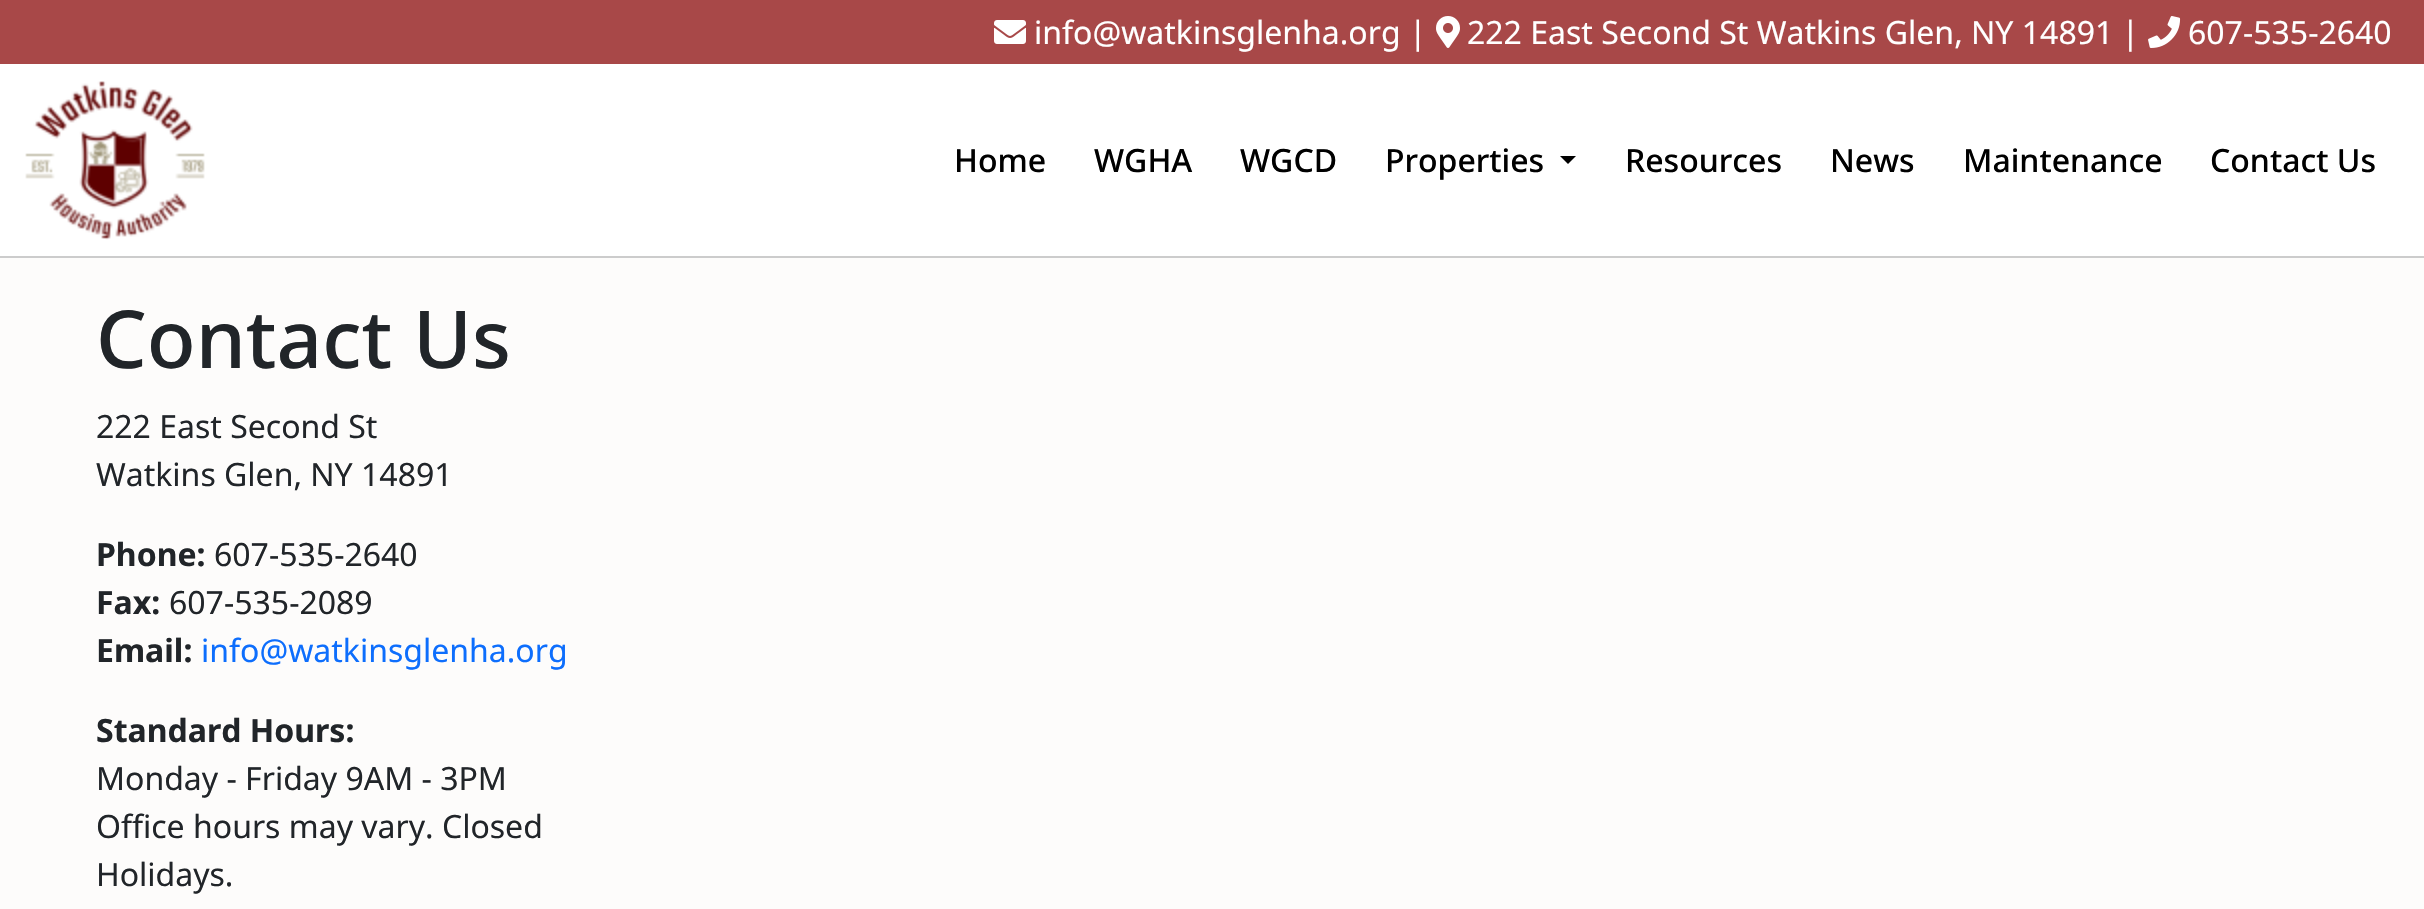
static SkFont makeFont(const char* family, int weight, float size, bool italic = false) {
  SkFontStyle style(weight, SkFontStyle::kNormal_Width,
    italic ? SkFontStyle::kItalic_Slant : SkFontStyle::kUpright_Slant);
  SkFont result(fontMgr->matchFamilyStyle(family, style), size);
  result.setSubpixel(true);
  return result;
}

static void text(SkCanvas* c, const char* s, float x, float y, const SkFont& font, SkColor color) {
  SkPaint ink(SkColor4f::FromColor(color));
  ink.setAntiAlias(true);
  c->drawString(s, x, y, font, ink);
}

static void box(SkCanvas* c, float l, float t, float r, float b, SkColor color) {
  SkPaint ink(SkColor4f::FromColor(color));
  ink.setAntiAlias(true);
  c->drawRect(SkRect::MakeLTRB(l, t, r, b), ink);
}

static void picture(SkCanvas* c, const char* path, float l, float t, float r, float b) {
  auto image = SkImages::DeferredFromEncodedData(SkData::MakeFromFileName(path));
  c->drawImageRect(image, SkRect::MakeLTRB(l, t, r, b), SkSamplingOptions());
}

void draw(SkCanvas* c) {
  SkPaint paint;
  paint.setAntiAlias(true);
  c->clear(0xfffdfcfb);
  box(c, 0, 0, 2424, 64, 0xffa84848);
  picture(c, "img_01.png", 994, 20, 1026, 44);
  SkFont face1 = makeFont("Noto Sans", 400, 32);
  text(c, "info@watkinsglenha.org |", 1034, 44, face1, 0xffffffff);
  picture(c, "img_02.png", 1436, 16, 1460, 48);
  text(c, "222 East Second St Watkins Glen, NY 14891 |", 1467, 44, face1, 0xffffffff);
  picture(c, "img_03.png", 2148, 16, 2181, 48);
  text(c, "607-535-2640", 2188, 44, face1, 0xffffffff);
  box(c, 0, 64, 2424, 256, 0xffffffff);
  box(c, 0, 256, 2424, 258, 0xffcccccc);
  picture(c, "img_04.png", 25, 81, 205, 240);
  SkFont face2 = makeFont("Noto Sans", 500, 32);
  text(c, "Home", 954, 172, face2, 0xff000000);
  text(c, "WGHA", 1094, 172, face2, 0xff000000);
  text(c, "WGCD", 1240, 172, face2, 0xff000000);
  text(c, "Properties", 1385, 172, face2, 0xff000000);
  paint.setColor(0xff000000);
  c->drawPath(SkPathBuilder().moveTo(1560, 156).lineTo(1576, 156).lineTo(1568, 164).close().detach(), paint);
  text(c, "Resources", 1625, 172, face2, 0xff000000);
  text(c, "News", 1830, 172, face2, 0xff000000);
  text(c, "Maintenance", 1963, 172, face2, 0xff000000);
  text(c, "Contact Us", 2210, 172, face2, 0xff000000);
  SkFont face3 = makeFont("Noto Sans", 500, 80);
  text(c, "Contact Us", 96, 368, face3, 0xff212529);
  text(c, "222 East Second St", 96, 438, face1, 0xff212529);
  text(c, "Watkins Glen, NY 14891", 96, 486, face1, 0xff212529);
  SkFont face4 = makeFont("Noto Sans", 700, 32);
  text(c, "Phone:", 96, 566, face4, 0xff212529);
  text(c, "607-535-2640", 214, 566, face1, 0xff212529);
  text(c, "Fax:", 96, 614, face4, 0xff212529);
  text(c, "607-535-2089", 169, 614, face1, 0xff212529);
  text(c, "Email:", 96, 662, face4, 0xff212529);
  text(c, "info@watkinsglenha.org", 201, 662, face1, 0xff0d6efd);
  text(c, "Standard Hours:", 96, 742, face4, 0xff212529);
  text(c, "Monday - Friday 9AM - 3PM", 96, 790, face1, 0xff212529);
  text(c, "Office hours may vary. Closed", 96, 838, face1, 0xff212529);
  text(c, "Holidays.", 96, 886, face1, 0xff212529);
}
